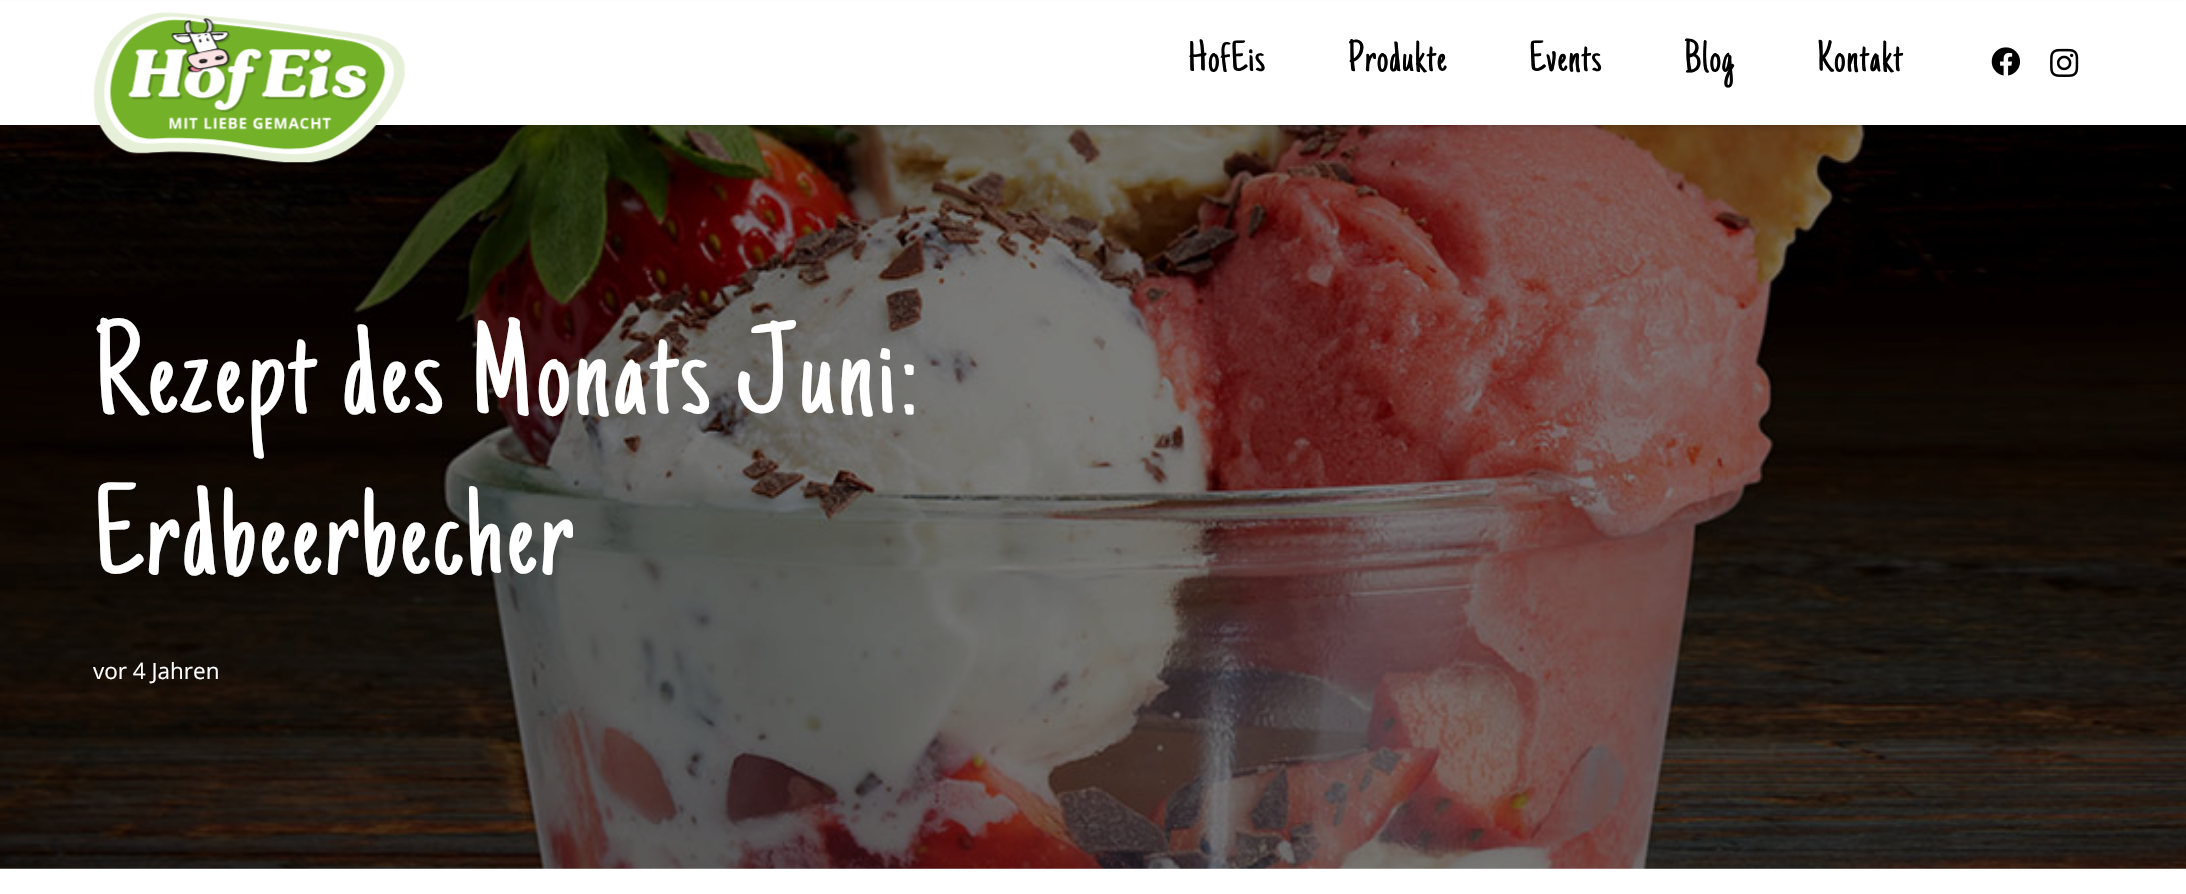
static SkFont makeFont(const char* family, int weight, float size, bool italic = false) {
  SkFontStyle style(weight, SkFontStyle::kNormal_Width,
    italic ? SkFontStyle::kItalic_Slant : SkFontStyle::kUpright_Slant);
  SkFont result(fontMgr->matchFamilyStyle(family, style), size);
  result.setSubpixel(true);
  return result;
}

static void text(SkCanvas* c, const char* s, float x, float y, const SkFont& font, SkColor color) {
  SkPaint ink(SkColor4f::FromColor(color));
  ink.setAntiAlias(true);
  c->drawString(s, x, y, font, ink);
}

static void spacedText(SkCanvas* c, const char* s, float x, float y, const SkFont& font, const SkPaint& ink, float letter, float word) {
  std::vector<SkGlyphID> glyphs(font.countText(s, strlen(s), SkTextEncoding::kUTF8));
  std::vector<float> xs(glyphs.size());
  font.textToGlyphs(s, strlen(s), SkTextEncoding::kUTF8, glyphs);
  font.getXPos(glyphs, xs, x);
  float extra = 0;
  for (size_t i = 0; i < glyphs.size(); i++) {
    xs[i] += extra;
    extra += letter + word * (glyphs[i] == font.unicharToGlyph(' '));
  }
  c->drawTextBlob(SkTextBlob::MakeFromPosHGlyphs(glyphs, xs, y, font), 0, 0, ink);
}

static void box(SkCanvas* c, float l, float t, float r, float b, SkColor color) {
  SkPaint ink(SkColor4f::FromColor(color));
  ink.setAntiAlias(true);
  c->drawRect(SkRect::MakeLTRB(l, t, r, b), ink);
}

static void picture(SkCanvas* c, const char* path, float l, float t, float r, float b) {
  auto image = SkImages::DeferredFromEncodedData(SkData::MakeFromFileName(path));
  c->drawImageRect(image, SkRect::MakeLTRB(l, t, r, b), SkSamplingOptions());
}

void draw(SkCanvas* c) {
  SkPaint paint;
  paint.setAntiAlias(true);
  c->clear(0xffffffff);
  picture(c, "img_04.png", 0, 125, 2186, 869);
  paint.setColor(0x0d000000);
  paint.setMaskFilter(SkMaskFilter::MakeBlur(kNormal_SkBlurStyle, 0.5f));
  c->drawRect(SkRect::MakeLTRB(1, 4, 2185, 126), paint);
  paint.setMaskFilter(nullptr);
  paint.setColor(0x1a000000);
  paint.setMaskFilter(SkMaskFilter::MakeBlur(kNormal_SkBlurStyle, 3));
  c->drawRect(SkRect::MakeLTRB(1, 5, 2185, 128), paint);
  paint.setMaskFilter(nullptr);
  box(c, 0, 1, 2186, 125, 0xffffffff);
  picture(c, "img_01.png", 93, 12, 406, 163);
  SkFont face1 = makeFont("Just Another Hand", 400, 45);
  paint.setColor(0xff000000);
  spacedText(c, "HofEis", 1188, 71, face1, paint, 1.25f, 0);
  spacedText(c, "Produkte", 1348, 71, face1, paint, 1.25f, 0);
  spacedText(c, "Events", 1529, 71, face1, paint, 1.25f, 0);
  spacedText(c, "Blog", 1684, 71, face1, paint, 1.25f, 0);
  spacedText(c, "Kontakt", 1817, 71, face1, paint, 1.25f, 0);
  picture(c, "img_02.png", 1991, 47, 2020, 76);
  picture(c, "img_03.png", 2050, 48, 2079, 77);
  SkFont face2 = makeFont("Just Another Hand", 400, 135);
  paint.setColor(0xffffffff);
  spacedText(c, "Rezept des Monats Juni:", 93, 413, face2, paint, 4.05f, 0);
  spacedText(c, "Erdbeerbecher", 93, 574, face2, paint, 4.05f, 0);
  SkFont face3 = makeFont("Open Sans", 400, 22.5f);
  text(c, "vor 4 Jahren", 93, 679, face3, 0xffffffff);
}
